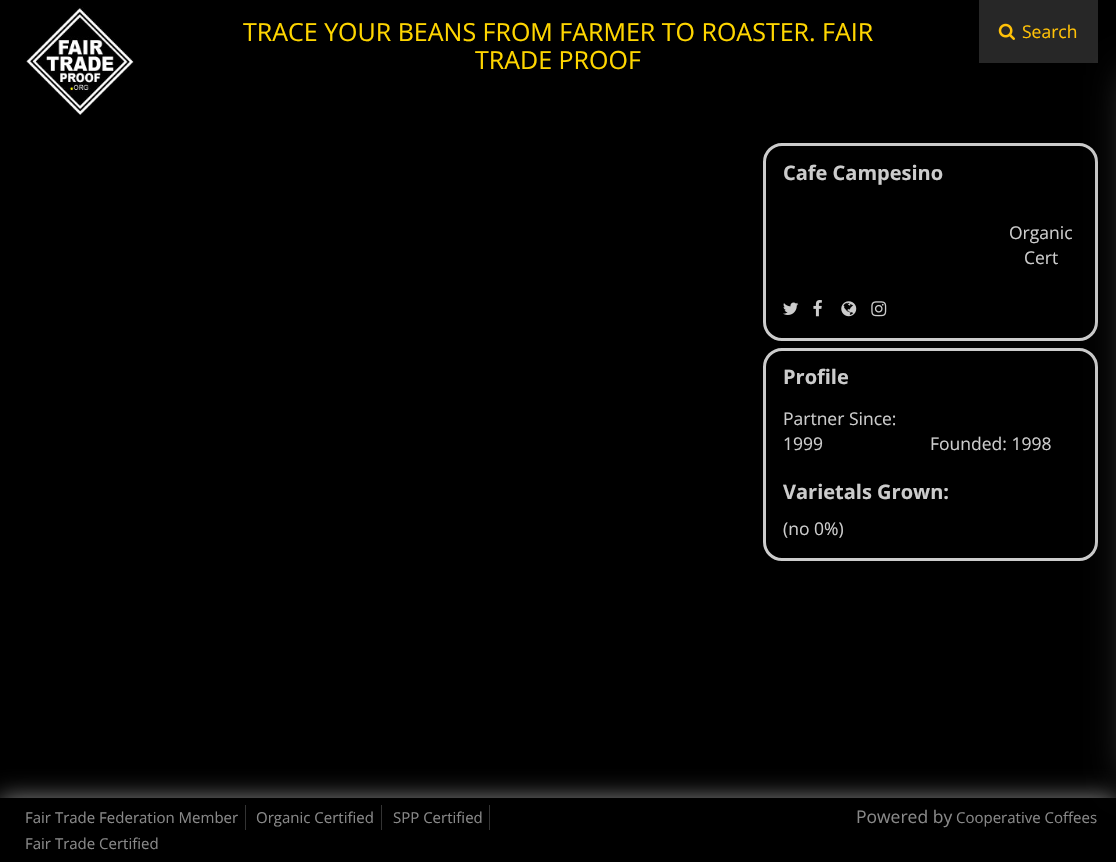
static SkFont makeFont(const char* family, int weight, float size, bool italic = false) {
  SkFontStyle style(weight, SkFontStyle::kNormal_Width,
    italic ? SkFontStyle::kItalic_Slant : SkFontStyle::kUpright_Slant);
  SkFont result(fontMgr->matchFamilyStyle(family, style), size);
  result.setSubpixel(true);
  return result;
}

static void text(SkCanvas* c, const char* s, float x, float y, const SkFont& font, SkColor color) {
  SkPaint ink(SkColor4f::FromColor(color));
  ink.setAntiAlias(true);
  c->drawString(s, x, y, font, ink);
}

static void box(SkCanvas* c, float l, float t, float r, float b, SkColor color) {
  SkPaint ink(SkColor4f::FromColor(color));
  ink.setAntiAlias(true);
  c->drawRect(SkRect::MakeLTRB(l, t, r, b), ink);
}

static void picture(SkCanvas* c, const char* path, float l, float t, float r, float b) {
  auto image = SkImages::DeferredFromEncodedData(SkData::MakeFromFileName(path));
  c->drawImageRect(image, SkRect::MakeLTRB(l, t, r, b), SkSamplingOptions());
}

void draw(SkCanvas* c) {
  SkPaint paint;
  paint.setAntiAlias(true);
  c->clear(0xff000000);
  picture(c, "img_01.png", 26, 7, 134, 115);
  SkFont face1 = makeFont("Open Sans", 400, 25);
  text(c, "TRACE YOUR BEANS FROM FARMER TO ROASTER. FAIR", 243, 41, face1, 0xffffd600);
  text(c, "TRADE PROOF", 475, 69, face1, 0xffffd600);
  box(c, 979, 0, 1098, 63, 0xff272727);
  picture(c, "img_02.png", 998, 23, 1015, 40);
  SkFont face2 = makeFont("Open Sans", 400, 17.5f);
  text(c, "Search", 1022, 38, face2, 0xffffc107);
  paint.setStyle(SkPaint::kStroke_Style);
  paint.setStrokeWidth(3);
  paint.setColor(0xffcccccc);
  c->drawRoundRect(SkRect::MakeLTRB(764.5f, 144.5f, 1096.5f, 339.5f), 17.5f, 17.5f, paint);
  c->drawRoundRect(SkRect::MakeLTRB(764.5f, 349.5f, 1096.5f, 559.5f), 17.5f, 17.5f, paint);
  paint.setStyle(SkPaint::kFill_Style);
  paint.setColor(0xff888888);
  paint.setMaskFilter(SkMaskFilter::MakeBlur(kNormal_SkBlurStyle, 12.5f));
  c->drawRect(SkRect::MakeLTRB(0, 798, 1116, 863), paint);
  paint.setMaskFilter(nullptr);
  box(c, 0, 798, 1116, 862, 0xff000000);
  paint.setColor(0xff444444);
  paint.setMaskFilter(SkMaskFilter::MakeBlur(kNormal_SkBlurStyle, 19));
  c->drawRect(SkRect::MakeLTRB(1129, 75, 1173, 775), paint);
  paint.setMaskFilter(nullptr);
  SkFont face3 = makeFont("Open Sans", 700, 20);
  text(c, "Cafe Campesino", 783, 180, face3, 0xffcccccc);
  text(c, "Organic", 1009, 239, face2, 0xffcccccc);
  text(c, "Cert", 1024, 264, face2, 0xffcccccc);
  picture(c, "img_03.png", 783, 302, 799, 315);
  picture(c, "img_04.png", 813, 300, 822, 317);
  picture(c, "img_05.png", 841, 301, 857, 317);
  picture(c, "img_06.png", 871, 301, 887, 317);
  text(c, "Profile", 783, 384, face3, 0xffcccccc);
  text(c, "Partner Since:", 783, 425, face2, 0xffcccccc);
  text(c, "1999", 783, 450, face2, 0xffcccccc);
  text(c, "Founded: 1998", 930, 450, face2, 0xffcccccc);
  text(c, "Varietals Grown:", 783, 499, face3, 0xffcccccc);
  text(c, "(no 0%)", 783, 535, face2, 0xffcccccc);
  box(c, 245, 805, 246, 830, 0xff333333);
  SkFont face4 = makeFont("Open Sans", 400, 15);
  text(c, "Fair Trade Federation Member", 25, 823, face4, 0xff888888);
  box(c, 381, 805, 382, 830, 0xff333333);
  text(c, "Organic Certified", 256, 823, face4, 0xff888888);
  box(c, 489, 805, 490, 830, 0xff333333);
  text(c, "SPP Certified", 393, 823, face4, 0xff888888);
  text(c, "Fair Trade Certified", 25, 849, face4, 0xff888888);
  text(c, "Powered by", 856, 823, face2, 0xff888888);
  text(c, "Cooperative Coffees", 956, 823, face4, 0xff888888);
}
